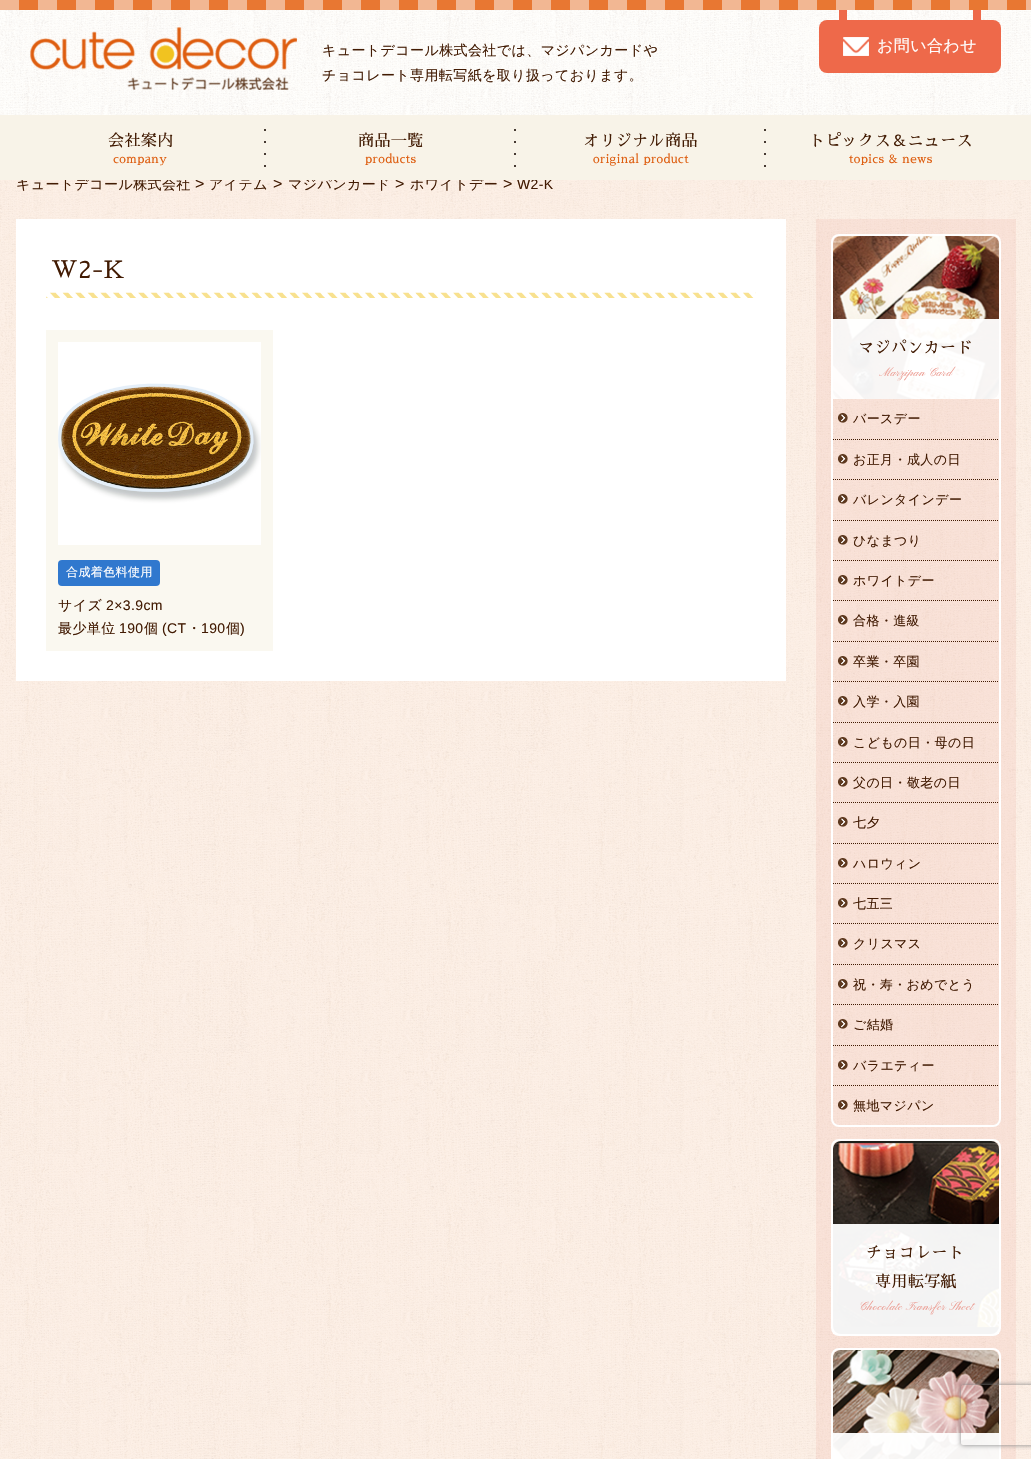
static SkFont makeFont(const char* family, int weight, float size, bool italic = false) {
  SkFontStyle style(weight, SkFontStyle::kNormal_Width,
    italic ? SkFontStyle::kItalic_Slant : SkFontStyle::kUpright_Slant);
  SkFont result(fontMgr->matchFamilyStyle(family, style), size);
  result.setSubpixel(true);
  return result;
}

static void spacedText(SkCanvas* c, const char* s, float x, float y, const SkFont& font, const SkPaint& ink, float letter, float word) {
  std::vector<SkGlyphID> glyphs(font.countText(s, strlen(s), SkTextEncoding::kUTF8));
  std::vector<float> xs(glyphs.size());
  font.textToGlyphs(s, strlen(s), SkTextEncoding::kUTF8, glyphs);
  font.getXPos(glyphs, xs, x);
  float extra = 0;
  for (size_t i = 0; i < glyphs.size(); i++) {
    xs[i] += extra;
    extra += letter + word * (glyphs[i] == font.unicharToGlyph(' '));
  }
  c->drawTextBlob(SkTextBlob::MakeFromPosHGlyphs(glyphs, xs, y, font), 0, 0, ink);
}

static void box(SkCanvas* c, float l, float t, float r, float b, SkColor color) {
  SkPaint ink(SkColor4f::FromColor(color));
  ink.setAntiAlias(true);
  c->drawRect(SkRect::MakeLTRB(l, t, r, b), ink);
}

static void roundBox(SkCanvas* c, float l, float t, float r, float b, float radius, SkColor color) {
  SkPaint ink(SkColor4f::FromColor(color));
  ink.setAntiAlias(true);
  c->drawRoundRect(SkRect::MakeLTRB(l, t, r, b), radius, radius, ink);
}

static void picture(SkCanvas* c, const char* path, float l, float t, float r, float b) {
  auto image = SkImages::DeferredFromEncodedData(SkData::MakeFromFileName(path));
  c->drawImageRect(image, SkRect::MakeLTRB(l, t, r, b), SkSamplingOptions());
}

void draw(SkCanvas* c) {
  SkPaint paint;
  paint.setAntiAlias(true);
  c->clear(0xffffffff);
  picture(c, "img_01.png", 0, 10, 1031, 115);
  picture(c, "img_02.png", 0, 0, 1031, 10);
  picture(c, "img_03.png", 30, 27, 297, 90);
  SkFont face1 = makeFont("WenQuanYi Zen Hei", 500, 14);
  paint.setColor(0xff421b03);
  spacedText(c, "キュートデコール株式会社では、マジパンカードや", 322, 55, face1, paint, 0.4f, 0);
  spacedText(c, "チョコレート専用転写紙を取り扱っております。", 322, 80, face1, paint, 0.4f, 0);
  roundBox(c, 819, 20, 1001, 73, 8, 0xffee694a);
  box(c, 839, 10, 847, 25, 0xffee694a);
  box(c, 973, 10, 981, 25, 0xffee694a);
  picture(c, "img_04.png", 843, 37, 869, 56);
  SkFont face2 = makeFont("WenQuanYi Zen Hei", 500, 16);
  paint.setColor(0xffffffff);
  spacedText(c, "お問い合わせ", 877, 51, face2, paint, 0.4f, 0);
  picture(c, "img_06.png", 0, 180, 1031, 1459);
  paint.setColor(0xff421b03);
  spacedText(c, "キュートデコール株式会社", 16, 189, face1, paint, 0.4f, 0);
  SkFont face3 = makeFont("Liberation Sans", 400, 16);
  spacedText(c, ">", 195, 189, face3, paint, 0.4f, 0);
  spacedText(c, "アイテム", 209, 189, face1, paint, 0.4f, 0);
  spacedText(c, ">", 273, 189, face3, paint, 0.4f, 0);
  spacedText(c, "マジパンカード", 288, 189, face1, paint, 0.4f, 0);
  spacedText(c, ">", 395, 189, face3, paint, 0.4f, 0);
  spacedText(c, "ホワイトデー", 410, 189, face1, paint, 0.4f, 0);
  spacedText(c, ">", 503, 189, face3, paint, 0.4f, 0);
  SkFont face4 = makeFont("Liberation Sans", 400, 14);
  spacedText(c, "W2-K", 517, 189, face4, paint, 0.4f, 0);
  box(c, 0, 115, 1031, 180, 0xfff8f3e8);
  picture(c, "img_05.png", 264, 129, 266, 167);
  SkFont face5 = makeFont("Sawarabi Mincho", 400, 16);
  spacedText(c, "会社案内", 108, 146, face5, paint, 0.4f, 0);
  SkFont face6 = makeFont("Sawarabi Mincho", 400, 12);
  paint.setColor(0xffde5d0f);
  spacedText(c, "company", 113, 163, face6, paint, 0.4f, 0);
  picture(c, "img_05.png", 514, 129, 516, 167);
  paint.setColor(0xff421b03);
  spacedText(c, "商品一覧", 358, 146, face5, paint, 0.4f, 0);
  paint.setColor(0xffde5d0f);
  spacedText(c, "products", 365, 163, face6, paint, 0.4f, 0);
  picture(c, "img_05.png", 764, 129, 766, 167);
  paint.setColor(0xff421b03);
  spacedText(c, "オリジナル商品", 583, 146, face5, paint, 0.4f, 0);
  paint.setColor(0xffde5d0f);
  spacedText(c, "original product", 593, 163, face6, paint, 0.4f, 0);
  paint.setColor(0xff421b03);
  spacedText(c, "トピックス＆ニュース", 809, 146, face5, paint, 0.4f, 0);
  paint.setColor(0xffde5d0f);
  spacedText(c, "topics & news", 849, 163, face6, paint, 0.4f, 0);
  box(c, 16, 219, 786, 681, 0xffffffff);
  picture(c, "img_07.png", 46, 292, 756, 298);
  SkFont face7 = makeFont("Sawarabi Mincho", 400, 24);
  paint.setColor(0xff421b03);
  spacedText(c, "W2-K", 51, 278, face7, paint, 0.4f, 0);
  box(c, 46, 330, 273, 651, 0xfffaf8f0);
  picture(c, "img_08.png", 58, 342, 261, 545);
  roundBox(c, 58, 560, 160, 586, 4, 0xff3078ce);
  SkFont face8 = makeFont("WenQuanYi Zen Hei", 500, 12);
  paint.setColor(0xffffffff);
  spacedText(c, "合成着色料使用", 66, 576, face8, paint, 0.4f, 0);
  paint.setColor(0xff421b03);
  spacedText(c, "サイズ", 58, 610, face1, paint, 0.4f, 0);
  spacedText(c, "2×3.9cm", 106, 610, face4, paint, 0.4f, 0);
  spacedText(c, "最少単位", 58, 633, face1, paint, 0.4f, 0);
  spacedText(c, "190", 119, 633, face4, paint, 0.4f, 0);
  spacedText(c, "個", 144, 633, face1, paint, 0.4f, 0);
  spacedText(c, "(CT", 162, 633, face4, paint, 0.4f, 0);
  spacedText(c, "・", 187, 633, face1, paint, 0.4f, 0);
  spacedText(c, "190", 201, 633, face4, paint, 0.4f, 0);
  spacedText(c, "個", 226, 633, face1, paint, 0.4f, 0);
  spacedText(c, ")", 240, 633, face4, paint, 0.4f, 0);
  box(c, 816, 219, 1016, 1459, 0x26ec978c);
  paint.setStyle(SkPaint::kStroke_Style);
  paint.setStrokeWidth(2);
  paint.setColor(0xffffffff);
  c->drawRoundRect(SkRect::MakeLTRB(832, 235, 1000, 1126), 7, 7, paint);
  picture(c, "img_09.png", 833, 236, 999, 399);
  box(c, 833, 319, 999, 399, 0xf2ffffff);
  paint.setStyle(SkPaint::kFill_Style);
  paint.setColor(0xff421b03);
  spacedText(c, "マジパンカード", 858, 353, face5, paint, 0.4f, 0);
  SkFont face9 = makeFont("Pinyon Script", 400, 12);
  paint.setColor(0xffec978c);
  spacedText(c, "Marzipan Card", 879, 376, face9, paint, 0.4f, 0);
  picture(c, "img_10.png", 838, 413, 848, 423);
  paint.setStyle(SkPaint::kStroke_Style);
  paint.setStrokeWidth(1);
  paint.setColor(0xff421b03);
  paint.setPathEffect(SkDashPathEffect::Make({{1, 1}}, 0));
  c->drawPath(SkPathBuilder().moveTo(833, 439.5f).lineTo(999, 439.5f).detach(), paint);
  paint.setPathEffect(nullptr);
  SkFont face10 = makeFont("WenQuanYi Zen Hei", 500, 13);
  paint.setStyle(SkPaint::kFill_Style);
  spacedText(c, "バースデー", 853, 423, face10, paint, 0.4f, 0);
  picture(c, "img_11.png", 838, 454, 848, 464);
  paint.setStyle(SkPaint::kStroke_Style);
  paint.setPathEffect(SkDashPathEffect::Make({{1, 1}}, 0));
  c->drawPath(SkPathBuilder().moveTo(833, 479.5f).lineTo(999, 479.5f).detach(), paint);
  paint.setPathEffect(nullptr);
  paint.setStyle(SkPaint::kFill_Style);
  spacedText(c, "お正月・成人の日", 853, 464, face10, paint, 0.4f, 0);
  picture(c, "img_12.png", 838, 494, 848, 504);
  paint.setStyle(SkPaint::kStroke_Style);
  paint.setPathEffect(SkDashPathEffect::Make({{1, 1}}, 0));
  c->drawPath(SkPathBuilder().moveTo(833, 520.5f).lineTo(999, 520.5f).detach(), paint);
  paint.setPathEffect(nullptr);
  paint.setStyle(SkPaint::kFill_Style);
  spacedText(c, "バレンタインデー", 853, 504, face10, paint, 0.4f, 0);
  picture(c, "img_13.png", 838, 535, 848, 545);
  paint.setStyle(SkPaint::kStroke_Style);
  paint.setPathEffect(SkDashPathEffect::Make({{1, 1}}, 0));
  c->drawPath(SkPathBuilder().moveTo(833, 560.5f).lineTo(999, 560.5f).detach(), paint);
  paint.setPathEffect(nullptr);
  paint.setStyle(SkPaint::kFill_Style);
  spacedText(c, "ひなまつり", 853, 545, face10, paint, 0.4f, 0);
  picture(c, "img_14.png", 838, 575, 848, 585);
  paint.setStyle(SkPaint::kStroke_Style);
  paint.setPathEffect(SkDashPathEffect::Make({{1, 1}}, 0));
  c->drawPath(SkPathBuilder().moveTo(833, 600.5f).lineTo(999, 600.5f).detach(), paint);
  paint.setPathEffect(nullptr);
  paint.setStyle(SkPaint::kFill_Style);
  spacedText(c, "ホワイトデー", 853, 585, face10, paint, 0.4f, 0);
  picture(c, "img_15.png", 838, 615, 848, 625);
  paint.setStyle(SkPaint::kStroke_Style);
  paint.setPathEffect(SkDashPathEffect::Make({{1, 1}}, 0));
  c->drawPath(SkPathBuilder().moveTo(833, 641.5f).lineTo(999, 641.5f).detach(), paint);
  paint.setPathEffect(nullptr);
  paint.setStyle(SkPaint::kFill_Style);
  spacedText(c, "合格・進級", 853, 625, face10, paint, 0.4f, 0);
  picture(c, "img_16.png", 838, 656, 848, 666);
  paint.setStyle(SkPaint::kStroke_Style);
  paint.setPathEffect(SkDashPathEffect::Make({{1, 1}}, 0));
  c->drawPath(SkPathBuilder().moveTo(833, 681.5f).lineTo(999, 681.5f).detach(), paint);
  paint.setPathEffect(nullptr);
  paint.setStyle(SkPaint::kFill_Style);
  spacedText(c, "卒業・卒園", 853, 666, face10, paint, 0.4f, 0);
  picture(c, "img_17.png", 838, 696, 848, 706);
  paint.setStyle(SkPaint::kStroke_Style);
  paint.setPathEffect(SkDashPathEffect::Make({{1, 1}}, 0));
  c->drawPath(SkPathBuilder().moveTo(833, 722.5f).lineTo(999, 722.5f).detach(), paint);
  paint.setPathEffect(nullptr);
  paint.setStyle(SkPaint::kFill_Style);
  spacedText(c, "入学・入園", 853, 706, face10, paint, 0.4f, 0);
  picture(c, "img_18.png", 838, 737, 848, 747);
  paint.setStyle(SkPaint::kStroke_Style);
  paint.setPathEffect(SkDashPathEffect::Make({{1, 1}}, 0));
  c->drawPath(SkPathBuilder().moveTo(833, 762.5f).lineTo(999, 762.5f).detach(), paint);
  paint.setPathEffect(nullptr);
  paint.setStyle(SkPaint::kFill_Style);
  spacedText(c, "こどもの日・母の日", 853, 747, face10, paint, 0.4f, 0);
  picture(c, "img_19.png", 838, 777, 848, 787);
  paint.setStyle(SkPaint::kStroke_Style);
  paint.setPathEffect(SkDashPathEffect::Make({{1, 1}}, 0));
  c->drawPath(SkPathBuilder().moveTo(833, 802.5f).lineTo(999, 802.5f).detach(), paint);
  paint.setPathEffect(nullptr);
  paint.setStyle(SkPaint::kFill_Style);
  spacedText(c, "父の日・敬老の日", 853, 787, face10, paint, 0.4f, 0);
  picture(c, "img_20.png", 838, 817, 848, 827);
  paint.setStyle(SkPaint::kStroke_Style);
  paint.setPathEffect(SkDashPathEffect::Make({{1, 1}}, 0));
  c->drawPath(SkPathBuilder().moveTo(833, 843.5f).lineTo(999, 843.5f).detach(), paint);
  paint.setPathEffect(nullptr);
  paint.setStyle(SkPaint::kFill_Style);
  spacedText(c, "七夕", 853, 827, face10, paint, 0.4f, 0);
  picture(c, "img_21.png", 838, 858, 848, 868);
  paint.setStyle(SkPaint::kStroke_Style);
  paint.setPathEffect(SkDashPathEffect::Make({{1, 1}}, 0));
  c->drawPath(SkPathBuilder().moveTo(833, 883.5f).lineTo(999, 883.5f).detach(), paint);
  paint.setPathEffect(nullptr);
  paint.setStyle(SkPaint::kFill_Style);
  spacedText(c, "ハロウィン", 853, 868, face10, paint, 0.4f, 0);
  picture(c, "img_22.png", 838, 898, 848, 908);
  paint.setStyle(SkPaint::kStroke_Style);
  paint.setPathEffect(SkDashPathEffect::Make({{1, 1}}, 0));
  c->drawPath(SkPathBuilder().moveTo(833, 923.5f).lineTo(999, 923.5f).detach(), paint);
  paint.setPathEffect(nullptr);
  paint.setStyle(SkPaint::kFill_Style);
  spacedText(c, "七五三", 853, 908, face10, paint, 0.4f, 0);
  picture(c, "img_23.png", 838, 938, 848, 948);
  paint.setStyle(SkPaint::kStroke_Style);
  paint.setPathEffect(SkDashPathEffect::Make({{1, 1}}, 0));
  c->drawPath(SkPathBuilder().moveTo(833, 964.5f).lineTo(999, 964.5f).detach(), paint);
  paint.setPathEffect(nullptr);
  paint.setStyle(SkPaint::kFill_Style);
  spacedText(c, "クリスマス", 853, 948, face10, paint, 0.4f, 0);
  picture(c, "img_24.png", 838, 979, 848, 989);
  paint.setStyle(SkPaint::kStroke_Style);
  paint.setPathEffect(SkDashPathEffect::Make({{1, 1}}, 0));
  c->drawPath(SkPathBuilder().moveTo(833, 1004.5f).lineTo(999, 1004.5f).detach(), paint);
  paint.setPathEffect(nullptr);
  paint.setStyle(SkPaint::kFill_Style);
  spacedText(c, "祝・寿・おめでとう", 853, 989, face10, paint, 0.4f, 0);
  picture(c, "img_25.png", 838, 1019, 848, 1029);
  paint.setStyle(SkPaint::kStroke_Style);
  paint.setPathEffect(SkDashPathEffect::Make({{1, 1}}, 0));
  c->drawPath(SkPathBuilder().moveTo(833, 1045.5f).lineTo(999, 1045.5f).detach(), paint);
  paint.setPathEffect(nullptr);
  paint.setStyle(SkPaint::kFill_Style);
  spacedText(c, "ご結婚", 853, 1029, face10, paint, 0.4f, 0);
  picture(c, "img_26.png", 838, 1060, 848, 1070);
  paint.setStyle(SkPaint::kStroke_Style);
  paint.setPathEffect(SkDashPathEffect::Make({{1, 1}}, 0));
  c->drawPath(SkPathBuilder().moveTo(833, 1085.5f).lineTo(999, 1085.5f).detach(), paint);
  paint.setPathEffect(nullptr);
  paint.setStyle(SkPaint::kFill_Style);
  spacedText(c, "バラエティー", 853, 1070, face10, paint, 0.4f, 0);
  picture(c, "img_27.png", 838, 1100, 848, 1110);
  spacedText(c, "無地マジパン", 853, 1110, face10, paint, 0.4f, 0);
  paint.setStyle(SkPaint::kStroke_Style);
  paint.setStrokeWidth(2);
  paint.setColor(0xffffffff);
  c->drawRoundRect(SkRect::MakeLTRB(832, 1140, 1000, 1335), 7, 7, paint);
  picture(c, "img_28.png", 833, 1141, 999, 1334);
  box(c, 833, 1224, 999, 1334, 0xf2ffffff);
  paint.setStyle(SkPaint::kFill_Style);
  paint.setColor(0xff421b03);
  spacedText(c, "チョコレート", 866, 1258, face5, paint, 0.4f, 0);
  spacedText(c, "専用転写紙", 875, 1287, face5, paint, 0.4f, 0);
  paint.setColor(0xffec978c);
  spacedText(c, "Chocolate Transfer Sheet", 859, 1310, face9, paint, 0.4f, 0);
  paint.setStyle(SkPaint::kStroke_Style);
  paint.setColor(0xffffffff);
  c->drawRoundRect(SkRect::MakeLTRB(832, 1349, 1000, 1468), 7, 7, paint);
  picture(c, "img_29.png", 833, 1350, 999, 1459);
  box(c, 833, 1433, 999, 1459, 0xf2ffffff);
  c->save();
  c->clipPath(SkPathBuilder(SkPathFillType::kEvenOdd).moveTo(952, 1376).lineTo(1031, 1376).lineTo(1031, 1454).lineTo(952, 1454).close().moveTo(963, 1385).lineTo(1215, 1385).cubicTo(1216, 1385, 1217, 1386, 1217, 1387).lineTo(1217, 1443).cubicTo(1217, 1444, 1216, 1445, 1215, 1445).lineTo(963, 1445).cubicTo(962, 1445, 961, 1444, 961, 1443).lineTo(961, 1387).cubicTo(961, 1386, 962, 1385, 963, 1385).close().detach(), true);
  paint.setStyle(SkPaint::kFill_Style);
  paint.setColor(0xff808080);
  paint.setMaskFilter(SkMaskFilter::MakeBlur(kNormal_SkBlurStyle, 2.5f));
  c->drawRoundRect(SkRect::MakeLTRB(961, 1385, 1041, 1445), 2, 2, paint);
  paint.setMaskFilter(nullptr);
  c->restore();
}
